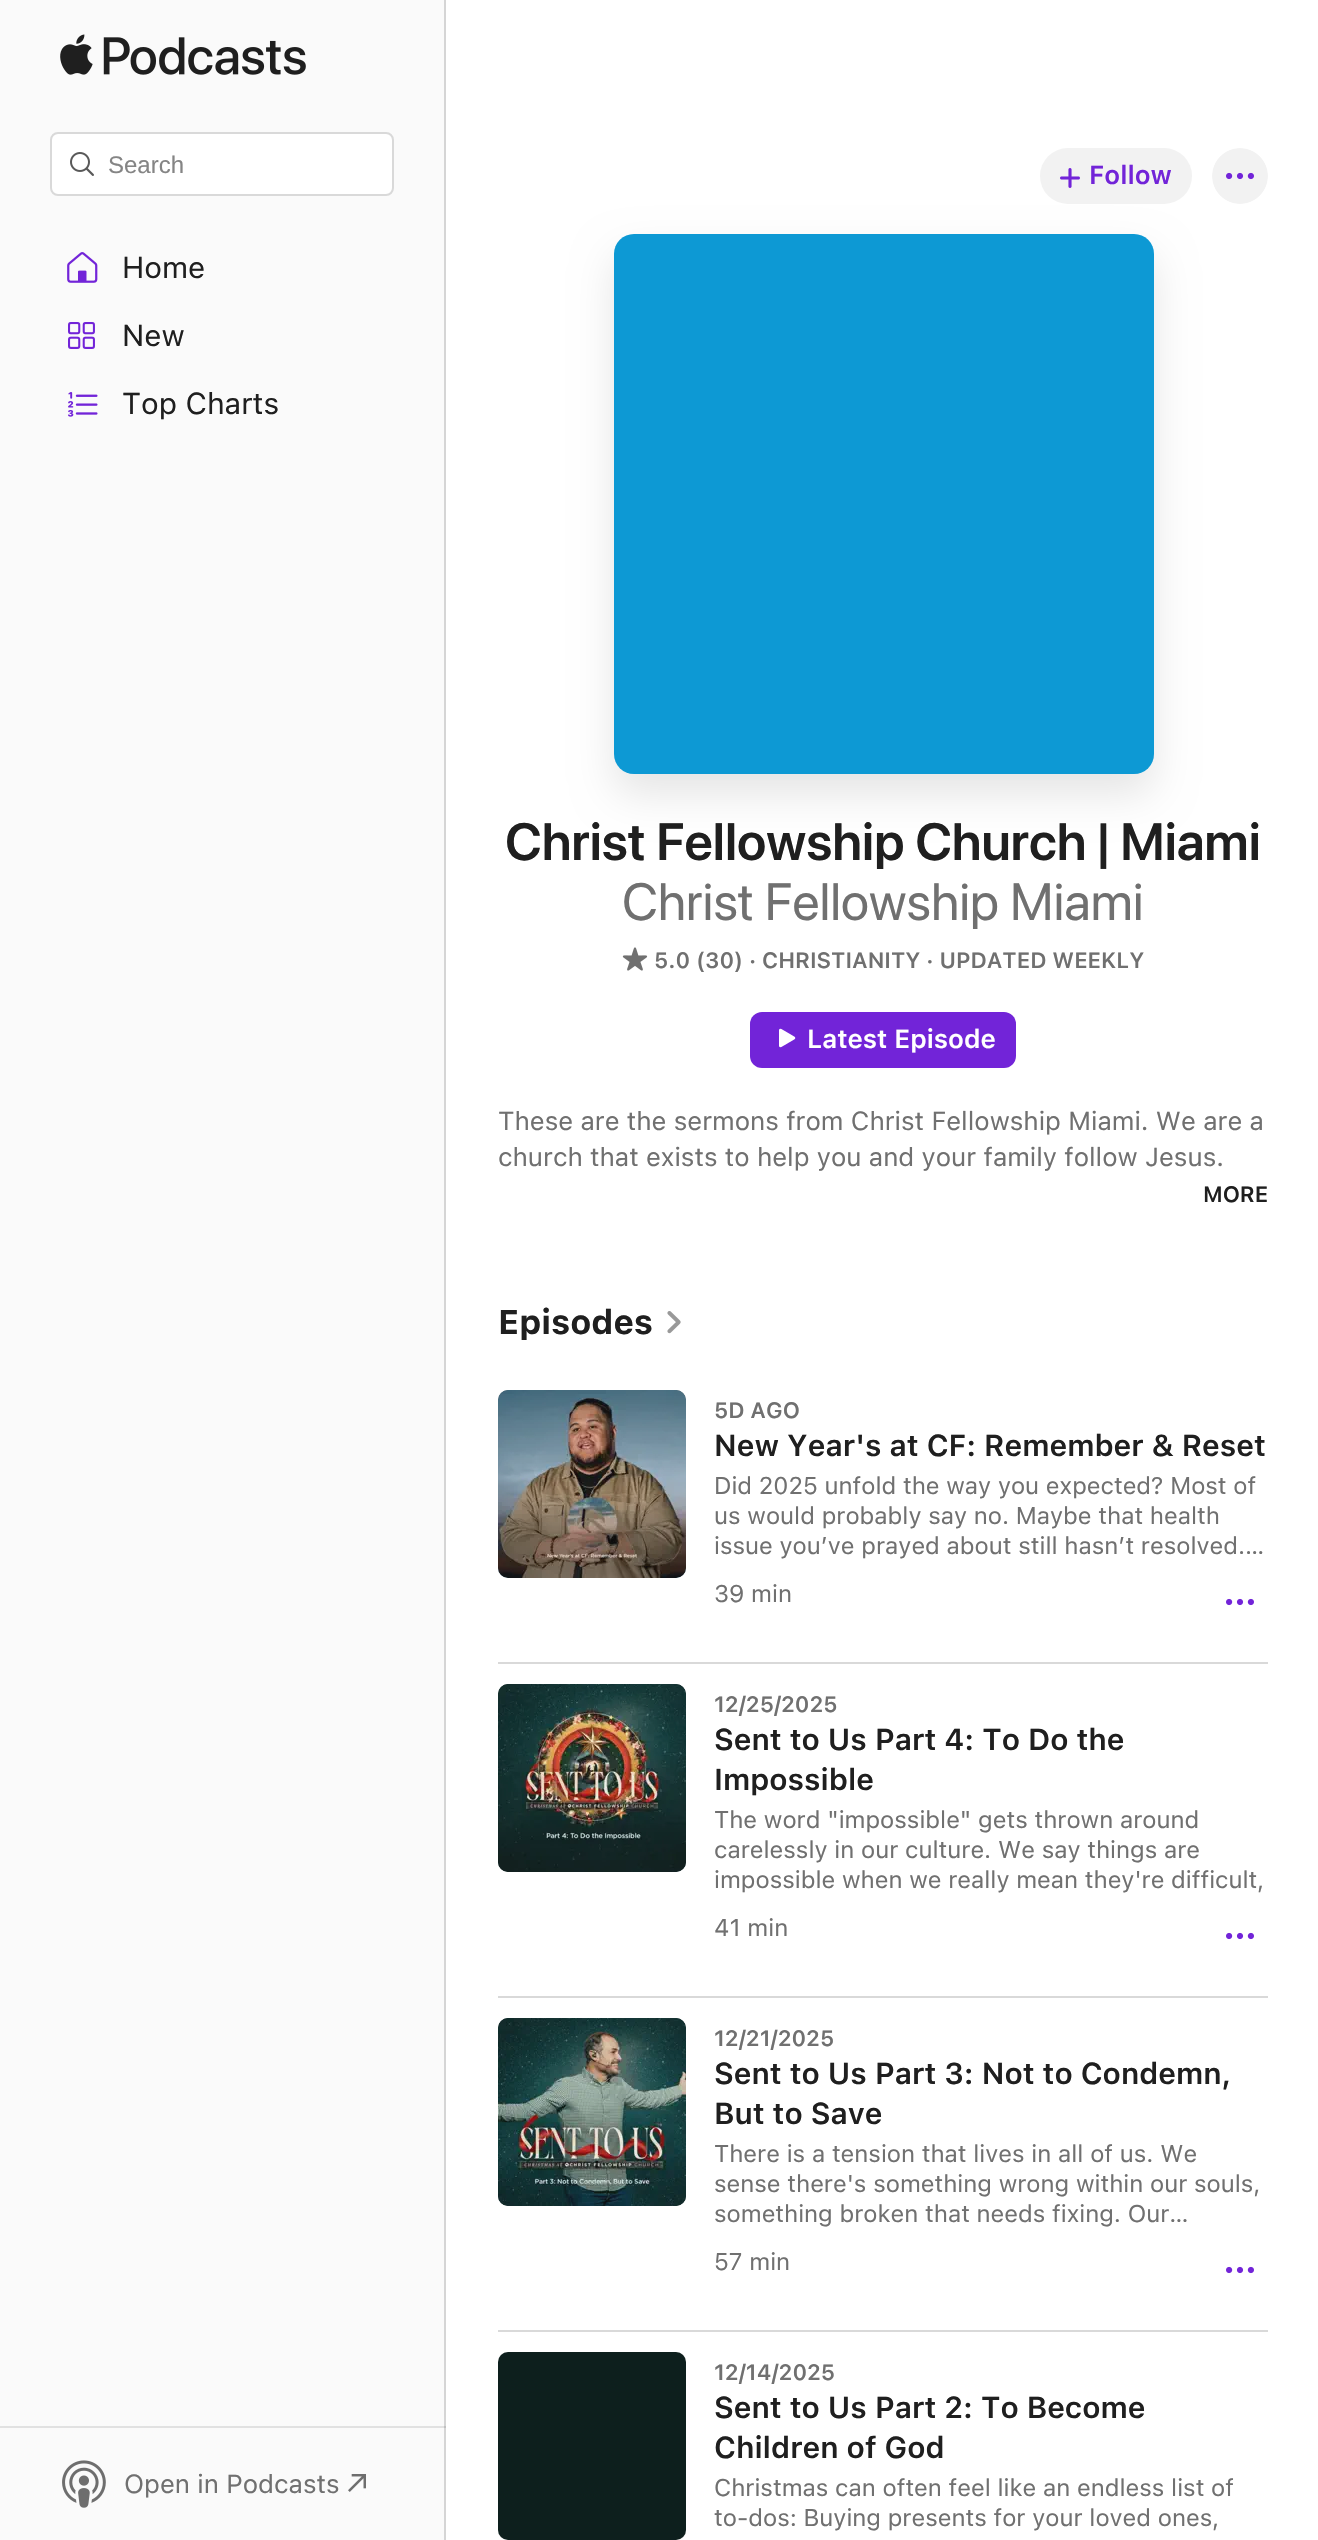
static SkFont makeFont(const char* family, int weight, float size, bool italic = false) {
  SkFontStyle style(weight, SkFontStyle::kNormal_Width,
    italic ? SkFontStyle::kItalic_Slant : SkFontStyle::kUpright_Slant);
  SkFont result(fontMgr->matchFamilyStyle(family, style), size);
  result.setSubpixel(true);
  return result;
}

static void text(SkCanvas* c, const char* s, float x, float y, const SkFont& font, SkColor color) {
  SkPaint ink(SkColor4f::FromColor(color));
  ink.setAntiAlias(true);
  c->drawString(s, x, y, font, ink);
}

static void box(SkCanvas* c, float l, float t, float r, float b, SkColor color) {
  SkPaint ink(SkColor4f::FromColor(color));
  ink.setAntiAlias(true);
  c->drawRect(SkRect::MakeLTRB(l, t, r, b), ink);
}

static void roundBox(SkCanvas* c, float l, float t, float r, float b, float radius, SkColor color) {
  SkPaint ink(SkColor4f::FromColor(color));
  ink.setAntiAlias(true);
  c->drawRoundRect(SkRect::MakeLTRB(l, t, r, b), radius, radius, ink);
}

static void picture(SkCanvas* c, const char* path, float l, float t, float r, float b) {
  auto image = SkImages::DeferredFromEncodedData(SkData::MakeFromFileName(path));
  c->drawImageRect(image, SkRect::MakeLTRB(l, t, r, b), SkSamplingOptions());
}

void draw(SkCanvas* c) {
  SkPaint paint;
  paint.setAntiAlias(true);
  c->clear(0xffffffff);
  box(c, 0, 0, 444, 2540, 0xfffafafa);
  box(c, 0, 2426, 446, 2428, 0xffe1e1e1);
  box(c, 444, 0, 446, 2540, 0xffd5d5d5);
  box(c, 444, 2426, 446, 2428, 0xffc0c0c0);
  picture(c, "img_01.png", 60, 34, 306, 75);
  paint.setColor(0xffffffff);
  c->drawRoundRect(SkRect::MakeLTRB(51, 133, 393, 195), 7, 7, paint);
  paint.setStyle(SkPaint::kStroke_Style);
  paint.setStrokeWidth(2);
  paint.setColor(0xffd9d9d9);
  c->drawRoundRect(SkRect::MakeLTRB(51, 133, 393, 195), 7, 7, paint);
  picture(c, "img_02.png", 70, 152, 94, 176);
  SkFont face1 = makeFont("Liberation Sans", 400, 24);
  text(c, "Search", 108, 173, face1, 0xff858585);
  picture(c, "img_03.png", 67, 252, 98, 283);
  SkFont face2 = makeFont("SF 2", 400, 30);
  text(c, "Home", 122, 278, face2, 0xff1f1f1f);
  picture(c, "img_04.png", 68, 322, 95, 349);
  text(c, "New", 122, 346, face2, 0xff1f1f1f);
  picture(c, "img_05.png", 68, 392, 98, 417);
  text(c, "Top Charts", 122, 414, face2, 0xff1f1f1f);
  picture(c, "img_06.png", 62, 2460, 106, 2508);
  SkFont face3 = makeFont("SF 2", 400, 26);
  text(c, "Open in Podcasts", 124, 2493, face3, 0xff707070);
  picture(c, "img_07.png", 348, 2474, 366, 2492);
  roundBox(c, 1040, 148, 1192, 204, 28, 0xfff2f2f2);
  picture(c, "img_08.png", 1060, 168, 1080, 188);
  SkFont face4 = makeFont("SF", 600, 26);
  text(c, "Follow", 1089, 184, face4, 0xff7224d8);
  picture(c, "img_09.png", 1212, 148, 1268, 204);
  paint.setStyle(SkPaint::kFill_Style);
  paint.setColor(0x1a000000);
  paint.setMaskFilter(SkMaskFilter::MakeBlur(kNormal_SkBlurStyle, 20));
  c->drawRoundRect(SkRect::MakeLTRB(614, 254, 1154, 794), 20, 20, paint);
  paint.setMaskFilter(nullptr);
  roundBox(c, 614, 234, 1154, 774, 20, 0xff009cde);
  paint.setColor(0x1a808080);
  c->drawPath(SkPathBuilder().moveTo(634, 234).lineTo(1134, 234).cubicTo(1145, 234, 1154, 243, 1154, 254).lineTo(1154, 754).cubicTo(1154, 765, 1145, 774, 1134, 774).lineTo(634, 774).cubicTo(623, 774, 614, 765, 614, 754).lineTo(614, 254).cubicTo(614, 243, 623, 234, 634, 234).close().detach(), paint);
  SkFont face5 = makeFont("SF 2", 600, 52);
  text(c, "Christ Fellowship Church | Miami", 505, 860, face5, 0xff1f1f1f);
  SkFont face6 = makeFont("SF", 400, 52);
  text(c, "Christ Fellowship Miami", 622, 920, face6, 0xff707070);
  picture(c, "img_10.png", 622, 947, 648, 971);
  SkFont face7 = makeFont("SF", 600, 22);
  text(c, "5.0 (30) · CHRISTIANITY · UPDATED WEEKLY", 654, 968, face7, 0xff707070);
  roundBox(c, 750, 1012, 1016, 1068, 12, 0xff7224d8);
  picture(c, "img_11.png", 779, 1028, 796, 1048);
  text(c, "Latest Episode", 807, 1048, face4, 0xffffffff);
  text(c, "These are the sermons from Christ Fellowship Miami. We are a", 498, 1130, face3, 0xff707070);
  text(c, "church that exists to help you and your family follow Jesus.", 498, 1166, face3, 0xff707070);
  text(c, "MORE", 1203, 1202, face7, 0xff1f1f1f);
  SkFont face8 = makeFont("SF", 700, 34);
  text(c, "Episodes", 498, 1334, face8, 0xff1f1f1f);
  picture(c, "img_12.png", 667, 1311, 681, 1334);
  box(c, 498, 1662, 1268, 1664, 0xffd9d9d9);
  roundBox(c, 498, 1390, 686, 1578, 10, 0xff3f6070);
  picture(c, "img_13.png", 498, 1390, 686, 1578);
  c->drawPath(SkPathBuilder().moveTo(508, 1390).lineTo(676, 1390).cubicTo(682, 1390, 686, 1394, 686, 1400).lineTo(686, 1568).cubicTo(686, 1574, 682, 1578, 676, 1578).lineTo(508, 1578).cubicTo(502, 1578, 498, 1574, 498, 1568).lineTo(498, 1400).cubicTo(498, 1394, 502, 1390, 508, 1390).close().detach(), paint);
  text(c, "5D AGO", 714, 1418, face7, 0xff707070);
  SkFont face9 = makeFont("SF", 600, 30);
  text(c, "New Year's at CF: Remember & Reset", 714, 1456, face9, 0xff1f1f1f);
  SkFont face10 = makeFont("SF 2", 400, 24);
  text(c, "Did 2025 unfold the way you expected? Most of", 714, 1494, face10, 0xff707070);
  text(c, "us would probably say no. Maybe that health", 714, 1524, face10, 0xff707070);
  text(c, "issue you’ve prayed about still hasn’t resolved.…", 714, 1554, face10, 0xff707070);
  text(c, "39 min", 714, 1602, face10, 0xff707070);
  picture(c, "img_14.png", 1226, 1598, 1254, 1606);
  box(c, 498, 1996, 1268, 1998, 0xffd9d9d9);
  roundBox(c, 498, 1684, 686, 1872, 10, 0xff041e1d);
  picture(c, "img_15.png", 498, 1684, 686, 1872);
  c->drawPath(SkPathBuilder().moveTo(508, 1684).lineTo(676, 1684).cubicTo(682, 1684, 686, 1688, 686, 1694).lineTo(686, 1862).cubicTo(686, 1868, 682, 1872, 676, 1872).lineTo(508, 1872).cubicTo(502, 1872, 498, 1868, 498, 1862).lineTo(498, 1694).cubicTo(498, 1688, 502, 1684, 508, 1684).close().detach(), paint);
  text(c, "12/25/2025", 714, 1712, face7, 0xff707070);
  text(c, "Sent to Us Part 4: To Do the", 714, 1750, face9, 0xff1f1f1f);
  text(c, "Impossible", 714, 1790, face9, 0xff1f1f1f);
  text(c, "The word \"impossible\" gets thrown around", 714, 1828, face10, 0xff707070);
  text(c, "carelessly in our culture. We say things are", 714, 1858, face10, 0xff707070);
  text(c, "impossible when we really mean they're difficult,", 714, 1888, face10, 0xff707070);
  text(c, "41 min", 714, 1936, face10, 0xff707070);
  picture(c, "img_14.png", 1226, 1932, 1254, 1940);
  box(c, 498, 2330, 1268, 2332, 0xffd9d9d9);
  roundBox(c, 498, 2018, 686, 2206, 10, 0xff001e1e);
  picture(c, "img_16.png", 498, 2018, 686, 2206);
  c->drawPath(SkPathBuilder().moveTo(508, 2018).lineTo(676, 2018).cubicTo(682, 2018, 686, 2022, 686, 2028).lineTo(686, 2196).cubicTo(686, 2202, 682, 2206, 676, 2206).lineTo(508, 2206).cubicTo(502, 2206, 498, 2202, 498, 2196).lineTo(498, 2028).cubicTo(498, 2022, 502, 2018, 508, 2018).close().detach(), paint);
  text(c, "12/21/2025", 714, 2046, face7, 0xff707070);
  text(c, "Sent to Us Part 3: Not to Condemn,", 714, 2084, face9, 0xff1f1f1f);
  text(c, "But to Save", 714, 2124, face9, 0xff1f1f1f);
  text(c, "There is a tension that lives in all of us. We", 714, 2162, face10, 0xff707070);
  text(c, "sense there's something wrong within our souls,", 714, 2192, face10, 0xff707070);
  text(c, "something broken that needs fixing. Our…", 714, 2222, face10, 0xff707070);
  text(c, "57 min", 714, 2270, face10, 0xff707070);
  picture(c, "img_14.png", 1226, 2266, 1254, 2274);
  roundBox(c, 498, 2352, 686, 2540, 10, 0xff001411);
  c->drawPath(SkPathBuilder().moveTo(508, 2352).lineTo(676, 2352).cubicTo(682, 2352, 686, 2356, 686, 2362).lineTo(686, 2530).cubicTo(686, 2536, 682, 2540, 676, 2540).lineTo(508, 2540).cubicTo(502, 2540, 498, 2536, 498, 2530).lineTo(498, 2362).cubicTo(498, 2356, 502, 2352, 508, 2352).close().detach(), paint);
  text(c, "12/14/2025", 714, 2380, face7, 0xff707070);
  text(c, "Sent to Us Part 2: To Become", 714, 2418, face9, 0xff1f1f1f);
  text(c, "Children of God", 714, 2458, face9, 0xff1f1f1f);
  text(c, "Christmas can often feel like an endless list of", 714, 2496, face10, 0xff707070);
  text(c, "to-dos: Buying presents for your loved ones,", 714, 2526, face10, 0xff707070);
}
